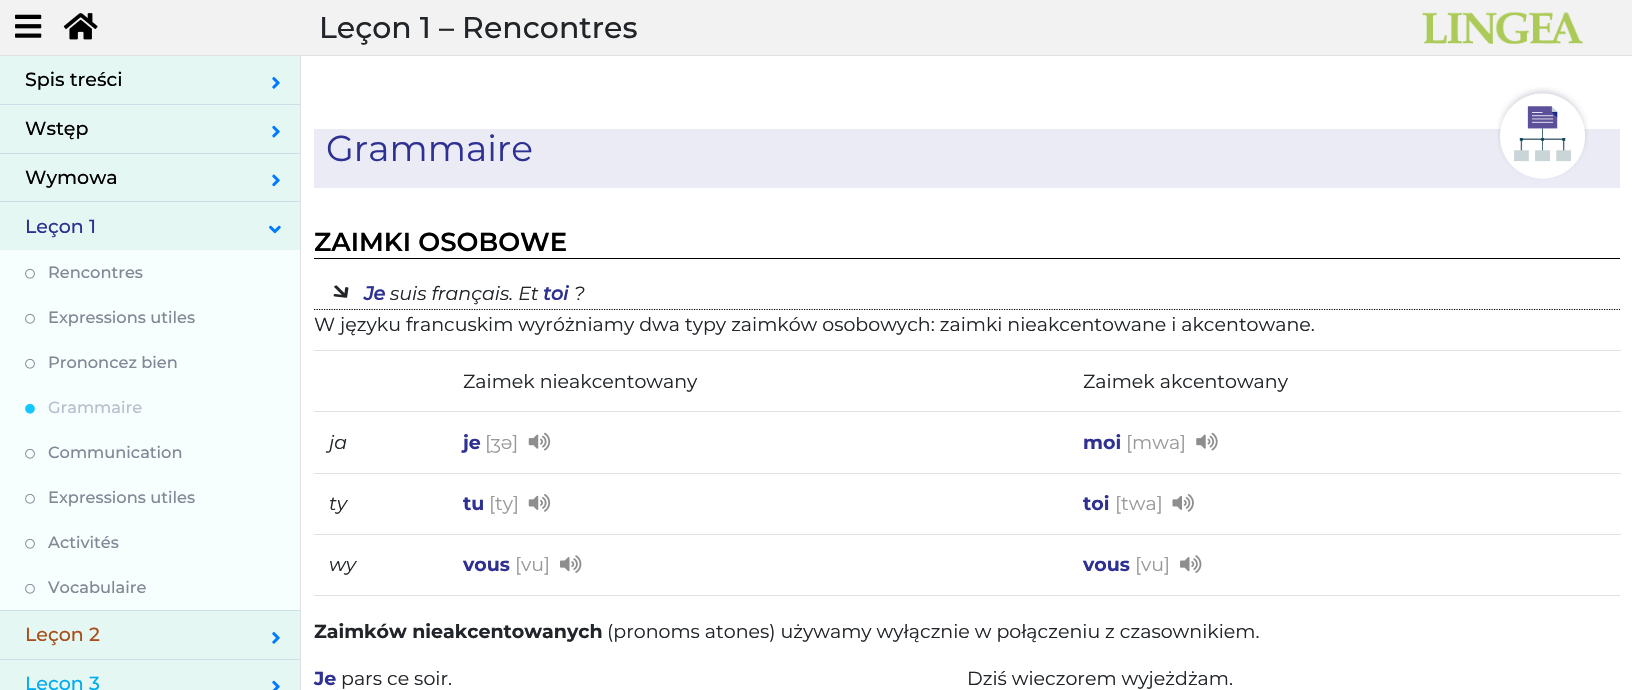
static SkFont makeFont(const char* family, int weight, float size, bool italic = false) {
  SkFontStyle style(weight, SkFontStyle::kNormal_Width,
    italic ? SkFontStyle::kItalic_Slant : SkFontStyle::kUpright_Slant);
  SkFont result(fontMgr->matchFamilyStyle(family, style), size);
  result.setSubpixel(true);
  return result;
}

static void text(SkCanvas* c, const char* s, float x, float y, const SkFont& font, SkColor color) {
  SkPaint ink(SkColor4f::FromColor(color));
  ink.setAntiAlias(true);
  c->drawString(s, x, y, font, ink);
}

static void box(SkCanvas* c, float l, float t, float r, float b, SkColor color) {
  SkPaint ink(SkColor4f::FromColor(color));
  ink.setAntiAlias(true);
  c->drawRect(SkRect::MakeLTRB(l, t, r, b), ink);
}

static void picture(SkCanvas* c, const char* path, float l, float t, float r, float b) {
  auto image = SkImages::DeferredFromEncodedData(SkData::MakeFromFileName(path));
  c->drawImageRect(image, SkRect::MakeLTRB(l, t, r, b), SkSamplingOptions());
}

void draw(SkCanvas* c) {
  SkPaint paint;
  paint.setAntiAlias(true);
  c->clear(0xffffffff);
  box(c, 0, 0, 1632, 55, 0xfff2f2f2);
  box(c, 0, 55, 1632, 56, 0xffdee2e6);
  picture(c, "img_01.png", 15, 14, 42, 38);
  picture(c, "img_02.png", 63, 13, 98, 40);
  SkFont face1 = makeFont("Montserrat", 500, 30);
  text(c, "Leçon 1 – Rencontres", 319, 38, face1, 0xff212529);
  picture(c, "img_03.png", 1422, 12, 1583, 44);
  box(c, 0, 56, 300, 690, 0xffe4f7f3);
  box(c, 300, 56, 301, 690, 0xffdee2e6);
  box(c, 0, 104, 300, 105, 0xffcbdfe6);
  SkFont face2 = makeFont("Montserrat", 500, 19);
  text(c, "Spis treści", 25, 86, face2, 0xff000000);
  picture(c, "img_04.png", 272, 77, 280, 89);
  box(c, 0, 153, 300, 154, 0xffcbdfe6);
  text(c, "Wstęp", 25, 135, face2, 0xff000000);
  picture(c, "img_05.png", 272, 125, 280, 138);
  box(c, 0, 201, 300, 202, 0xffcbdfe6);
  text(c, "Wymowa", 25, 184, face2, 0xff000000);
  picture(c, "img_06.png", 272, 174, 280, 187);
  box(c, 0, 610, 300, 611, 0xffcbdfe6);
  text(c, "Leçon 1", 25, 233, face2, 0xff2e3192);
  picture(c, "img_07.png", 269, 225, 281, 234);
  box(c, 0, 250, 300, 610, 0xfff6fffd);
  picture(c, "img_08.png", 25, 268, 35, 279);
  SkFont face3 = makeFont("Montserrat", 500, 16.25f);
  text(c, "Rencontres", 48, 278, face3, 0xff818896);
  picture(c, "img_08.png", 25, 313, 35, 324);
  text(c, "Expressions utiles", 48, 323, face3, 0xff818896);
  picture(c, "img_08.png", 25, 358, 35, 369);
  text(c, "Prononcez bien", 48, 368, face3, 0xff818896);
  picture(c, "img_09.png", 25, 403, 35, 414);
  text(c, "Grammaire", 48, 413, face3, 0xffb8bfce);
  picture(c, "img_08.png", 25, 448, 35, 459);
  text(c, "Communication", 48, 458, face3, 0xff818896);
  picture(c, "img_08.png", 25, 493, 35, 504);
  text(c, "Expressions utiles", 48, 503, face3, 0xff818896);
  picture(c, "img_08.png", 25, 538, 35, 549);
  text(c, "Activités", 48, 548, face3, 0xff818896);
  picture(c, "img_08.png", 25, 583, 35, 594);
  text(c, "Vocabulaire", 48, 593, face3, 0xff818896);
  box(c, 0, 659, 300, 660, 0xffcbdfe6);
  text(c, "Leçon 2", 25, 641, face2, 0xffa7501c);
  picture(c, "img_04.png", 272, 632, 280, 644);
  text(c, "Leçon 3", 25, 690, face2, 0xff00adef);
  picture(c, "img_10.png", 272, 680, 280, 690);
  box(c, 314, 129, 1620, 188, 0xffeaebf4);
  SkFont face4 = makeFont("Montserrat", 400, 36);
  text(c, "Grammaire", 326, 161, face4, 0xff2e3192);
  picture(c, "img_11.png", 1497, 87, 1588, 179);
  box(c, 314, 258, 1620, 259, 0xff000000);
  SkFont face5 = makeFont("Montserrat", 600, 26);
  text(c, "ZAIMKI OSOBOWE", 314, 251, face5, 0xff000000);
  paint.setStyle(SkPaint::kStroke_Style);
  paint.setStrokeWidth(1.2f);
  paint.setColor(0xff000000);
  paint.setPathEffect(SkDashPathEffect::Make({{1.25f, 1.25f}}, 0));
  c->drawPath(SkPathBuilder().moveTo(314, 309.5f).lineTo(1620, 309.5f).detach(), paint);
  paint.setPathEffect(nullptr);
  picture(c, "img_12.png", 333, 285, 349, 298);
  SkFont face6 = makeFont("Montserrat", 700, 19, true);
  text(c, "Je", 364, 300, face6, 0xff2e3192);
  SkFont face7 = makeFont("Montserrat", 400, 19, true);
  text(c, "suis français. Et", 390, 300, face7, 0xff212529);
  text(c, "toi", 543, 300, face6, 0xff2e3192);
  text(c, "?", 574, 300, face7, 0xff212529);
  SkFont face8 = makeFont("Montserrat", 400, 19);
  text(c, "W języku francuskim wyróżniamy dwa typy zaimków osobowych: zaimki nieakcentowane i akcentowane.", 314, 331, face8, 0xff212529);
  box(c, 314, 595, 1620, 596, 0xffdee2e6);
  text(c, "Zaimek nieakcentowany", 463, 388, face8, 0xff212529);
  box(c, 314, 350, 1621, 351, 0xffdee2e6);
  text(c, "Zaimek akcentowany", 1083, 388, face8, 0xff212529);
  text(c, "ja", 329, 449, face7, 0xff212529);
  SkFont face9 = makeFont("Montserrat", 700, 19);
  text(c, "je", 463, 449, face9, 0xff2e3192);
  text(c, "[ʒə]", 485, 449, face8, 0xff999999);
  picture(c, "img_13.png", 528, 432, 551, 451);
  box(c, 314, 411, 1621, 412, 0xffdee2e6);
  text(c, "moi", 1083, 449, face9, 0xff2e3192);
  text(c, "[mwa]", 1126, 449, face8, 0xff999999);
  picture(c, "img_14.png", 1196, 432, 1218, 451);
  text(c, "ty", 329, 510, face7, 0xff212529);
  text(c, "tu", 463, 510, face9, 0xff2e3192);
  text(c, "[ty]", 489, 510, face8, 0xff999999);
  picture(c, "img_15.png", 528, 494, 551, 512);
  box(c, 314, 473, 1621, 474, 0xffdee2e6);
  text(c, "toi", 1083, 510, face9, 0xff2e3192);
  text(c, "[twa]", 1115, 510, face8, 0xff999999);
  picture(c, "img_16.png", 1172, 494, 1194, 512);
  text(c, "wy", 329, 571, face7, 0xff212529);
  text(c, "vous", 463, 571, face9, 0xff2e3192);
  text(c, "[vu]", 515, 571, face8, 0xff999999);
  picture(c, "img_17.png", 560, 555, 582, 573);
  box(c, 314, 534, 1621, 535, 0xffdee2e6);
  text(c, "vous", 1083, 571, face9, 0xff2e3192);
  text(c, "[vu]", 1135, 571, face8, 0xff999999);
  picture(c, "img_17.png", 1180, 555, 1202, 573);
  text(c, "Zaimków nieakcentowanych", 314, 638, face9, 0xff212529);
  text(c, "(pronoms atones) używamy wyłącznie w połączeniu z czasownikiem.", 607, 638, face8, 0xff212529);
  text(c, "Je", 314, 685, face9, 0xff2e3192);
  text(c, "pars ce soir.", 341, 685, face8, 0xff212529);
  text(c, "Dziś wieczorem wyjeżdżam.", 967, 685, face8, 0xff212529);
}
